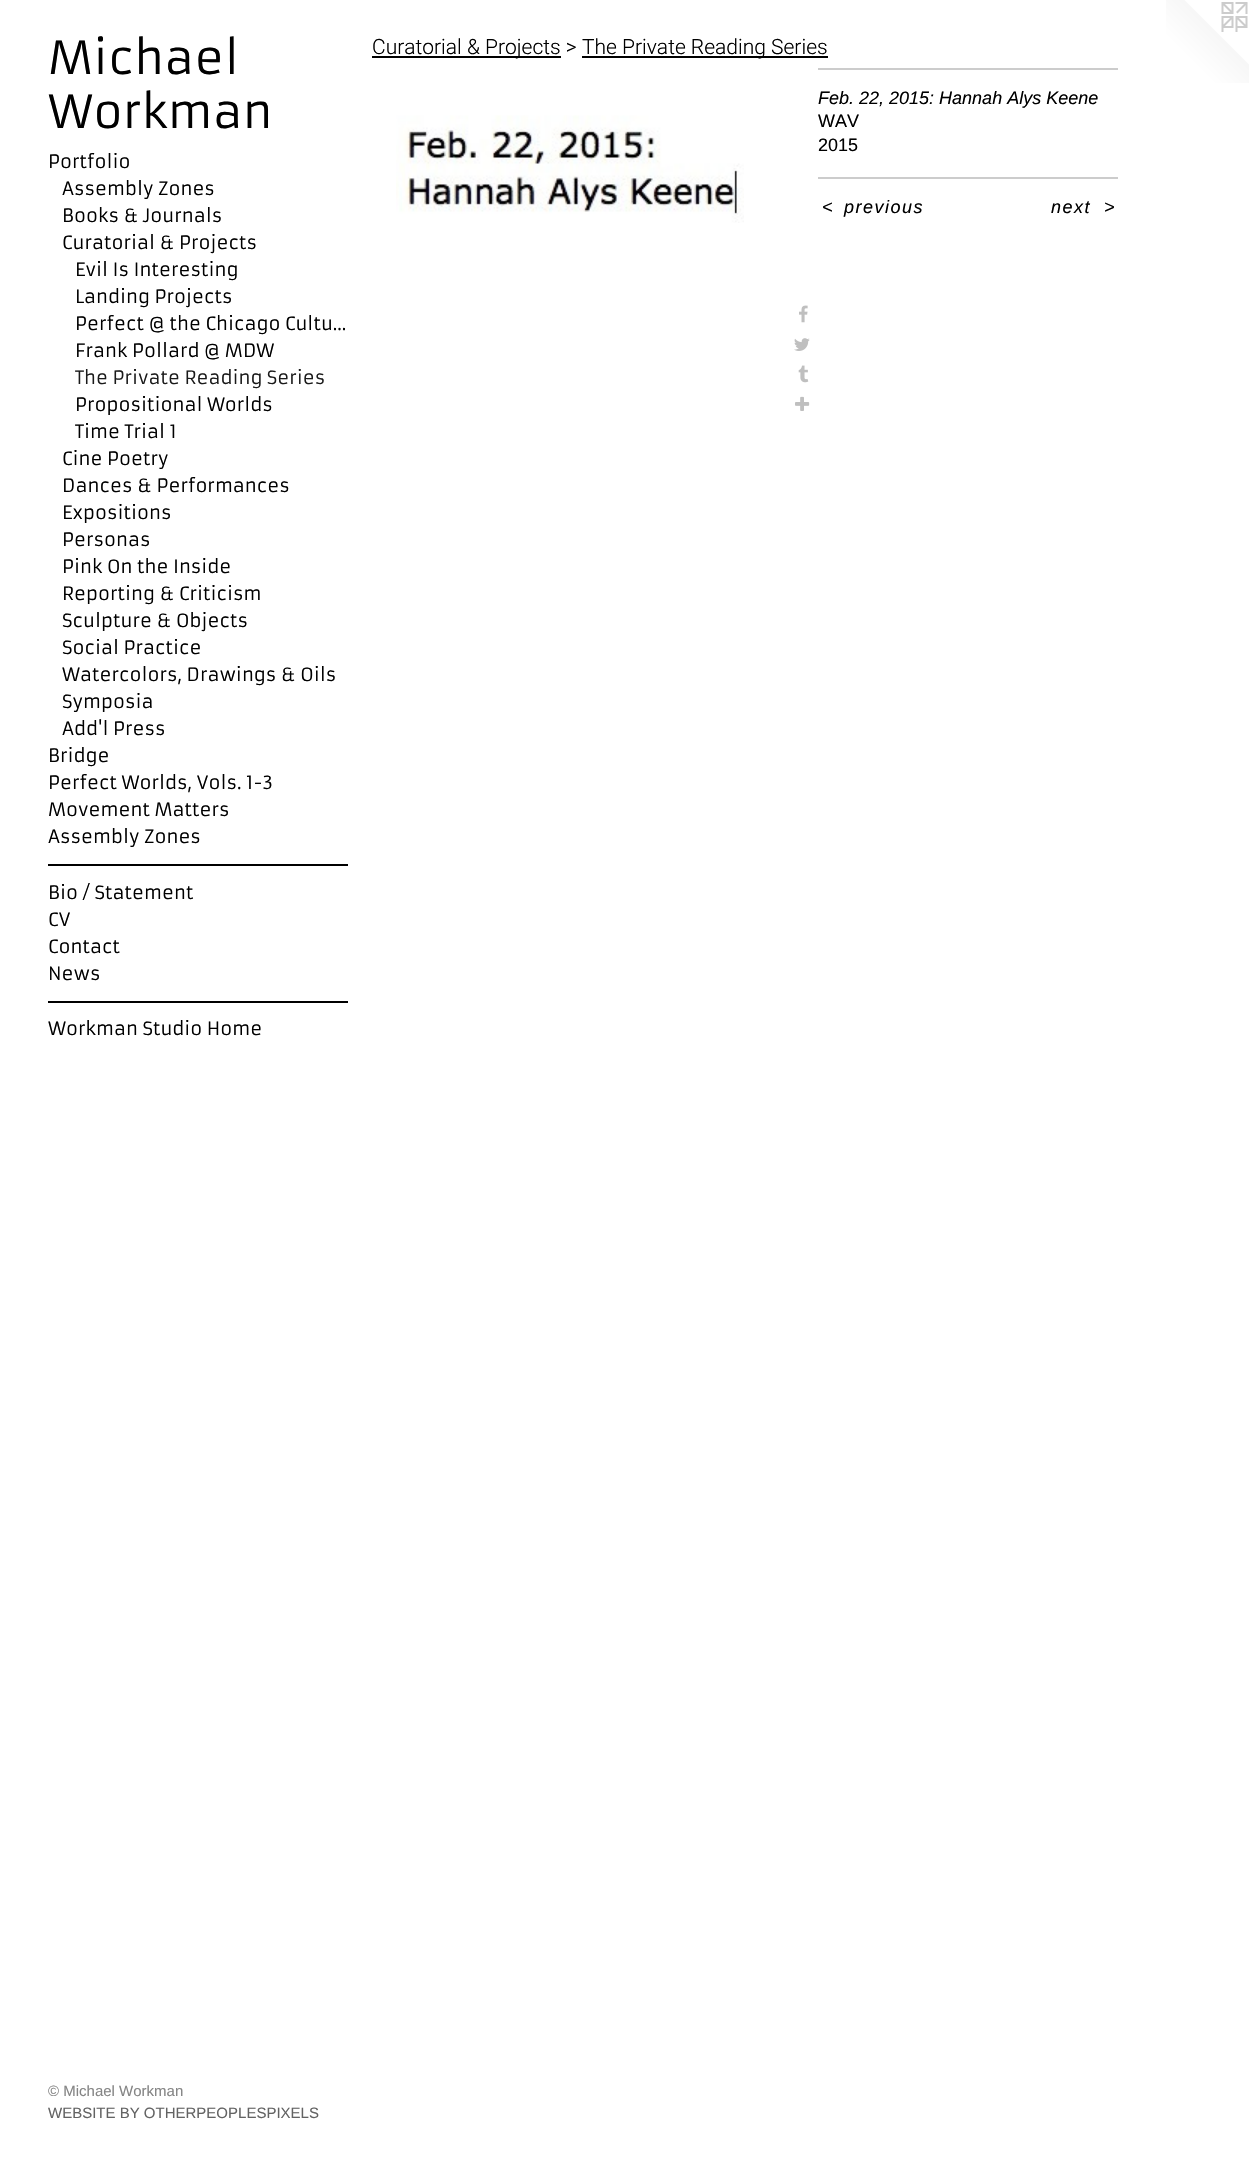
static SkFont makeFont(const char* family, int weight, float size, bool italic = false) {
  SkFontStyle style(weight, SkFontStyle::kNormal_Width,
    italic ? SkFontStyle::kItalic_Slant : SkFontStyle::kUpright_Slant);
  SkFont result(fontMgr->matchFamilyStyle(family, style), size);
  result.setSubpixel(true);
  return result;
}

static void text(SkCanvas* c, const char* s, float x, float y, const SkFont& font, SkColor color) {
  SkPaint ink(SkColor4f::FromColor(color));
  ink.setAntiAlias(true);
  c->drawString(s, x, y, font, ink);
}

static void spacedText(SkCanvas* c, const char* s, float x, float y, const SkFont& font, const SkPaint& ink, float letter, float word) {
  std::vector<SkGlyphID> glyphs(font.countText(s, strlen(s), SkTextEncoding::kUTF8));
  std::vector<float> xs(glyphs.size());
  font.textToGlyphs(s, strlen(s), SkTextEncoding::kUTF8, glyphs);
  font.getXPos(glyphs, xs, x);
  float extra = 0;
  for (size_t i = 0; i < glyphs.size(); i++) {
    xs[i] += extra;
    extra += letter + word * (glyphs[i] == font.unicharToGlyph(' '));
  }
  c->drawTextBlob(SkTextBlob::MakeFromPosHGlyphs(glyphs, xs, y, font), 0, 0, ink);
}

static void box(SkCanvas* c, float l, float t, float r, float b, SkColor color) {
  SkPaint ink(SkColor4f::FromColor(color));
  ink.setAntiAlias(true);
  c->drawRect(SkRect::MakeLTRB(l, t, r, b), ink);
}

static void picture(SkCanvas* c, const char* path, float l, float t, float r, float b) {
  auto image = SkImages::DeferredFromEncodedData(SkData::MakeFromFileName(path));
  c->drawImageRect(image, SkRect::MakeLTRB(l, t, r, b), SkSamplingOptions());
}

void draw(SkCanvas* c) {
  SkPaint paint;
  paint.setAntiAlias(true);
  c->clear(0xffffffff);
  SkFont face1 = makeFont("Armata", 400, 45);
  text(c, "Michael", 48, 74, face1, 0xff000000);
  text(c, "Workman", 48, 128, face1, 0xff000000);
  SkFont face2 = makeFont("Armata", 400, 18);
  text(c, "Portfolio", 48, 168, face2, 0xff000000);
  text(c, "Assembly Zones", 62, 195, face2, 0xff000000);
  text(c, "Books & Journals", 62, 222, face2, 0xff000000);
  text(c, "Curatorial & Projects", 62, 249, face2, 0xff000000);
  text(c, "Evil Is Interesting", 75, 276, face2, 0xff000000);
  text(c, "Landing Projects", 75, 303, face2, 0xff000000);
  text(c, "Perfect @ the Chicago Cultu…", 75, 330, face2, 0xff000000);
  text(c, "Frank Pollard @ MDW", 75, 357, face2, 0xff000000);
  text(c, "The Private Reading Series", 75, 384, face2, 0xff1a1a1a);
  text(c, "Propositional Worlds", 75, 411, face2, 0xff000000);
  text(c, "Time Trial 1", 75, 438, face2, 0xff000000);
  text(c, "Cine Poetry", 62, 465, face2, 0xff000000);
  text(c, "Dances & Performances", 62, 492, face2, 0xff000000);
  text(c, "Expositions", 62, 519, face2, 0xff000000);
  text(c, "Personas", 62, 546, face2, 0xff000000);
  text(c, "Pink On the Inside", 62, 573, face2, 0xff000000);
  text(c, "Reporting & Criticism", 62, 600, face2, 0xff000000);
  text(c, "Sculpture & Objects", 62, 627, face2, 0xff000000);
  text(c, "Social Practice", 62, 654, face2, 0xff000000);
  text(c, "Watercolors, Drawings & Oils", 62, 681, face2, 0xff000000);
  text(c, "Symposia", 62, 708, face2, 0xff000000);
  text(c, "Add'l Press", 62, 735, face2, 0xff000000);
  text(c, "Bridge", 48, 762, face2, 0xff000000);
  text(c, "Perfect Worlds, Vols. 1-3", 48, 789, face2, 0xff000000);
  text(c, "Movement Matters", 48, 816, face2, 0xff000000);
  text(c, "Assembly Zones", 48, 843, face2, 0xff000000);
  box(c, 48, 864, 348, 866, 0xff000000);
  text(c, "Bio / Statement", 48, 899, face2, 0xff000000);
  text(c, "CV", 48, 926, face2, 0xff000000);
  text(c, "Contact", 48, 953, face2, 0xff000000);
  text(c, "News", 48, 980, face2, 0xff000000);
  box(c, 48, 1001, 348, 1003, 0xff000000);
  text(c, "Workman Studio Home", 48, 1035, face2, 0xff000000);
  SkFont face3 = makeFont("Liberation Sans", 400, 15);
  text(c, "© Michael Workman", 48, 2096, face3, 0xff858585);
  text(c, "WEBSITE BY OTHERPEOPLESPIXELS", 48, 2118, face3, 0xff636363);
  box(c, 372, 56, 561, 58, 0xff000000);
  SkFont face4 = makeFont("Roboto", 300, 21);
  text(c, "Curatorial & Projects >", 372, 54, face4, 0xff000000);
  box(c, 582, 56, 828, 58, 0xff000000);
  text(c, "The Private Reading Series", 582, 54, face4, 0xff000000);
  picture(c, "img_01.png", 396, 115, 744, 223);
  picture(c, "img_02.png", 799, 305, 808, 323);
  picture(c, "img_03.png", 794, 338, 810, 351);
  picture(c, "img_04.png", 798, 365, 809, 383);
  picture(c, "img_05.png", 795, 396, 810, 411);
  box(c, 818, 68, 1118, 70, 0xffcccccc);
  SkFont face5 = makeFont("Liberation Sans", 400, 18, true);
  text(c, "Feb. 22, 2015: Hannah Alys Keene", 818, 104, face5, 0xff000000);
  SkFont face6 = makeFont("Liberation Sans", 400, 18);
  text(c, "WAV", 818, 127, face6, 0xff000000);
  text(c, "2015", 818, 151, face6, 0xff000000);
  box(c, 818, 177, 1118, 179, 0xffcccccc);
  paint.setColor(0xff000000);
  spacedText(c, "<", 822, 213, face5, paint, 1.5f, 0);
  spacedText(c, "previous", 844, 213, face5, paint, 1.5f, 0);
  spacedText(c, "next", 1051, 213, face5, paint, 1.5f, 0);
  spacedText(c, ">", 1104, 213, face5, paint, 1.5f, 0);
  picture(c, "img_06.png", 1166, 0, 1249, 83);
}
